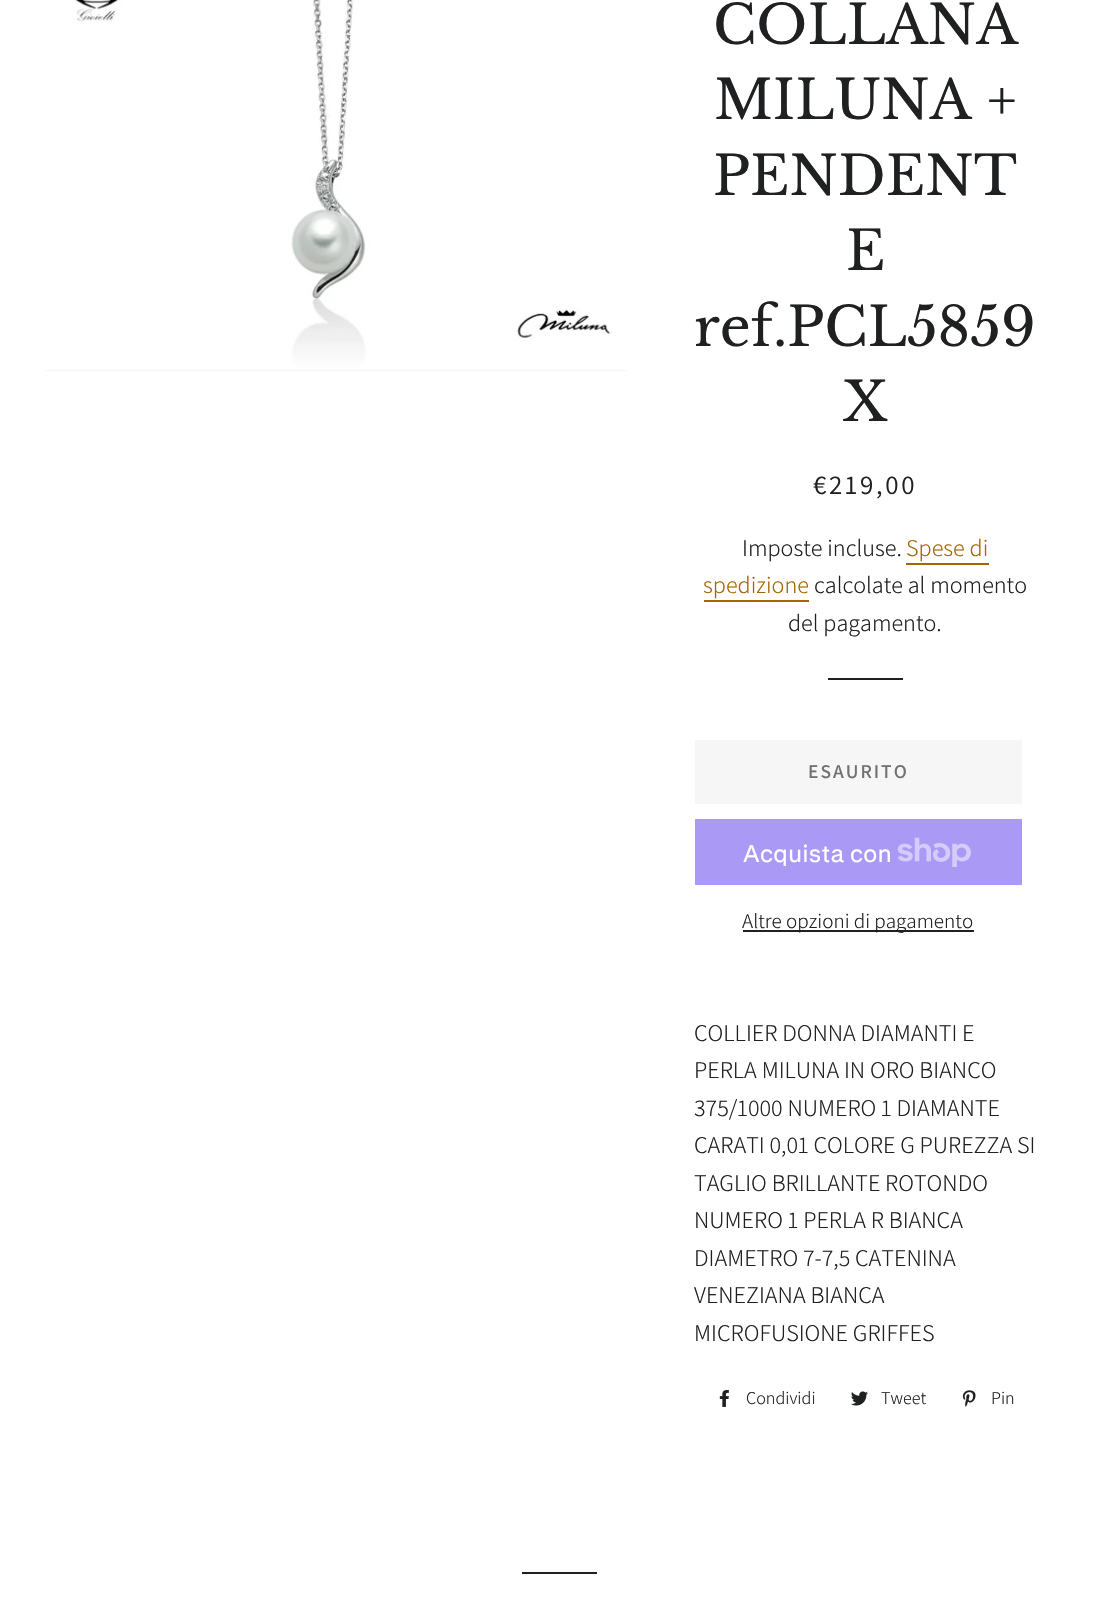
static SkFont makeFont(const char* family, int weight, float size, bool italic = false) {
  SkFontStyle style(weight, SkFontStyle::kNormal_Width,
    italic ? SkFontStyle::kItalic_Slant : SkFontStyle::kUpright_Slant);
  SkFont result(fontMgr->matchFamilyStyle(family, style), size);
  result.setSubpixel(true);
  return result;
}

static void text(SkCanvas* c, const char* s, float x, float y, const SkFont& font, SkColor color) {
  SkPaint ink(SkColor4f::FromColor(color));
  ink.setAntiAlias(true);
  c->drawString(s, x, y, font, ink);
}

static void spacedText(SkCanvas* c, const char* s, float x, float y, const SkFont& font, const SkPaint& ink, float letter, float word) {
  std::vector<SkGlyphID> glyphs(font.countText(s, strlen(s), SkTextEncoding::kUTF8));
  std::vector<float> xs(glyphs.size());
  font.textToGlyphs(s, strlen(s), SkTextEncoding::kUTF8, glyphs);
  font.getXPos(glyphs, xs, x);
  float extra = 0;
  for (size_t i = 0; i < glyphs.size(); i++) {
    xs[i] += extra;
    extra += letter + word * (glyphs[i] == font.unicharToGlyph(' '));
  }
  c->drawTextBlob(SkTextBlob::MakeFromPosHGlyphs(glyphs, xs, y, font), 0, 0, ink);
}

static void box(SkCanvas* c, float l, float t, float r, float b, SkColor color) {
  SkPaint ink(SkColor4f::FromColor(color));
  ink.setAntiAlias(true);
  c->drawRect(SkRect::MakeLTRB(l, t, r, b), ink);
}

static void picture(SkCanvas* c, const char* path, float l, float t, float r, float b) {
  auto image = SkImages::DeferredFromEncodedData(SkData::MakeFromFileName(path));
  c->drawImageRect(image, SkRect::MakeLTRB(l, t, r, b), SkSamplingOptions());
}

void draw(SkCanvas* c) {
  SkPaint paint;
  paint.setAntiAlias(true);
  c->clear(0xffffffff);
  box(c, 45, 370, 627, 371, 0xfff6f6f6);
  picture(c, "img_01.png", 45, 0, 627, 370);
  SkFont face1 = makeFont("Libre Baskerville", 400, 54);
  text(c, "COLLANA", 713, 44, face1, 0xff1f2021);
  text(c, "MILUNA +", 714, 119, face1, 0xff1f2021);
  text(c, "PENDENT", 713, 195, face1, 0xff1f2021);
  text(c, "E", 846, 270, face1, 0xff1f2021);
  text(c, "ref.PCL5859", 694, 346, face1, 0xff1f2021);
  text(c, "X", 843, 421, face1, 0xff1f2021);
  SkFont face2 = makeFont("Assistant", 400, 27);
  paint.setColor(0xff1f2021);
  spacedText(c, "€219,00", 813, 494, face2, paint, 2.75f, 0);
  SkFont face3 = makeFont("Assistant", 300, 24);
  text(c, "Imposte incluse.", 742, 556, face3, 0xff1f2021);
  text(c, "Spese di", 906, 556, face3, 0xffa56600);
  box(c, 906, 563, 989, 565, 0xffa56600);
  text(c, "spedizione", 703, 593, face3, 0xffa56600);
  box(c, 704, 600, 809, 602, 0xffa56600);
  text(c, "calcolate al momento", 814, 593, face3, 0xff1f2021);
  text(c, "del pagamento.", 788, 631, face3, 0xff1f2021);
  box(c, 828, 678, 903, 680, 0xff1f2021);
  box(c, 695, 740, 1022, 804, 0xfff6f6f6);
  SkFont face4 = makeFont("Assistant", 600, 19.5f);
  paint.setColor(0xff717171);
  spacedText(c, "ESAURITO", 808, 778, face4, paint, 2, 0);
  box(c, 695, 819, 1022, 885, 0xffaa99f5);
  SkFont face5 = makeFont("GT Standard", 400, 24);
  text(c, "Acquista con", 743, 862, face5, 0xffffffff);
  picture(c, "img_02.png", 897, 837, 971, 867);
  box(c, 743, 930, 974, 932, 0xff1f2021);
  SkFont face6 = makeFont("Assistant", 300, 21);
  text(c, "Altre opzioni di pagamento", 742, 928, face6, 0xff1f2021);
  text(c, "COLLIER DONNA DIAMANTI E", 694, 1041, face3, 0xff1f2021);
  text(c, "PERLA MILUNA IN ORO BIANCO", 694, 1078, face3, 0xff1f2021);
  text(c, "375/1000 NUMERO 1 DIAMANTE", 694, 1116, face3, 0xff1f2021);
  text(c, "CARATI 0,01 COLORE G PUREZZA SI", 694, 1153, face3, 0xff1f2021);
  text(c, "TAGLIO BRILLANTE ROTONDO", 694, 1191, face3, 0xff1f2021);
  text(c, "NUMERO 1 PERLA R BIANCA", 694, 1228, face3, 0xff1f2021);
  text(c, "DIAMETRO 7-7,5 CATENINA", 694, 1266, face3, 0xff1f2021);
  text(c, "VENEZIANA BIANCA", 694, 1303, face3, 0xff1f2021);
  text(c, "MICROFUSIONE GRIFFES", 694, 1341, face3, 0xff1f2021);
  picture(c, "img_03.png", 719, 1390, 729, 1407);
  SkFont face7 = makeFont("Assistant", 300, 18);
  text(c, "Condividi", 746, 1404, face7, 0xff1f2021);
  picture(c, "img_04.png", 851, 1391, 868, 1406);
  text(c, "Tweet", 881, 1404, face7, 0xff1f2021);
  picture(c, "img_05.png", 962, 1390, 976, 1407);
  text(c, "Pin", 991, 1404, face7, 0xff1f2021);
  box(c, 522, 1572, 597, 1574, 0xff1f2021);
}
